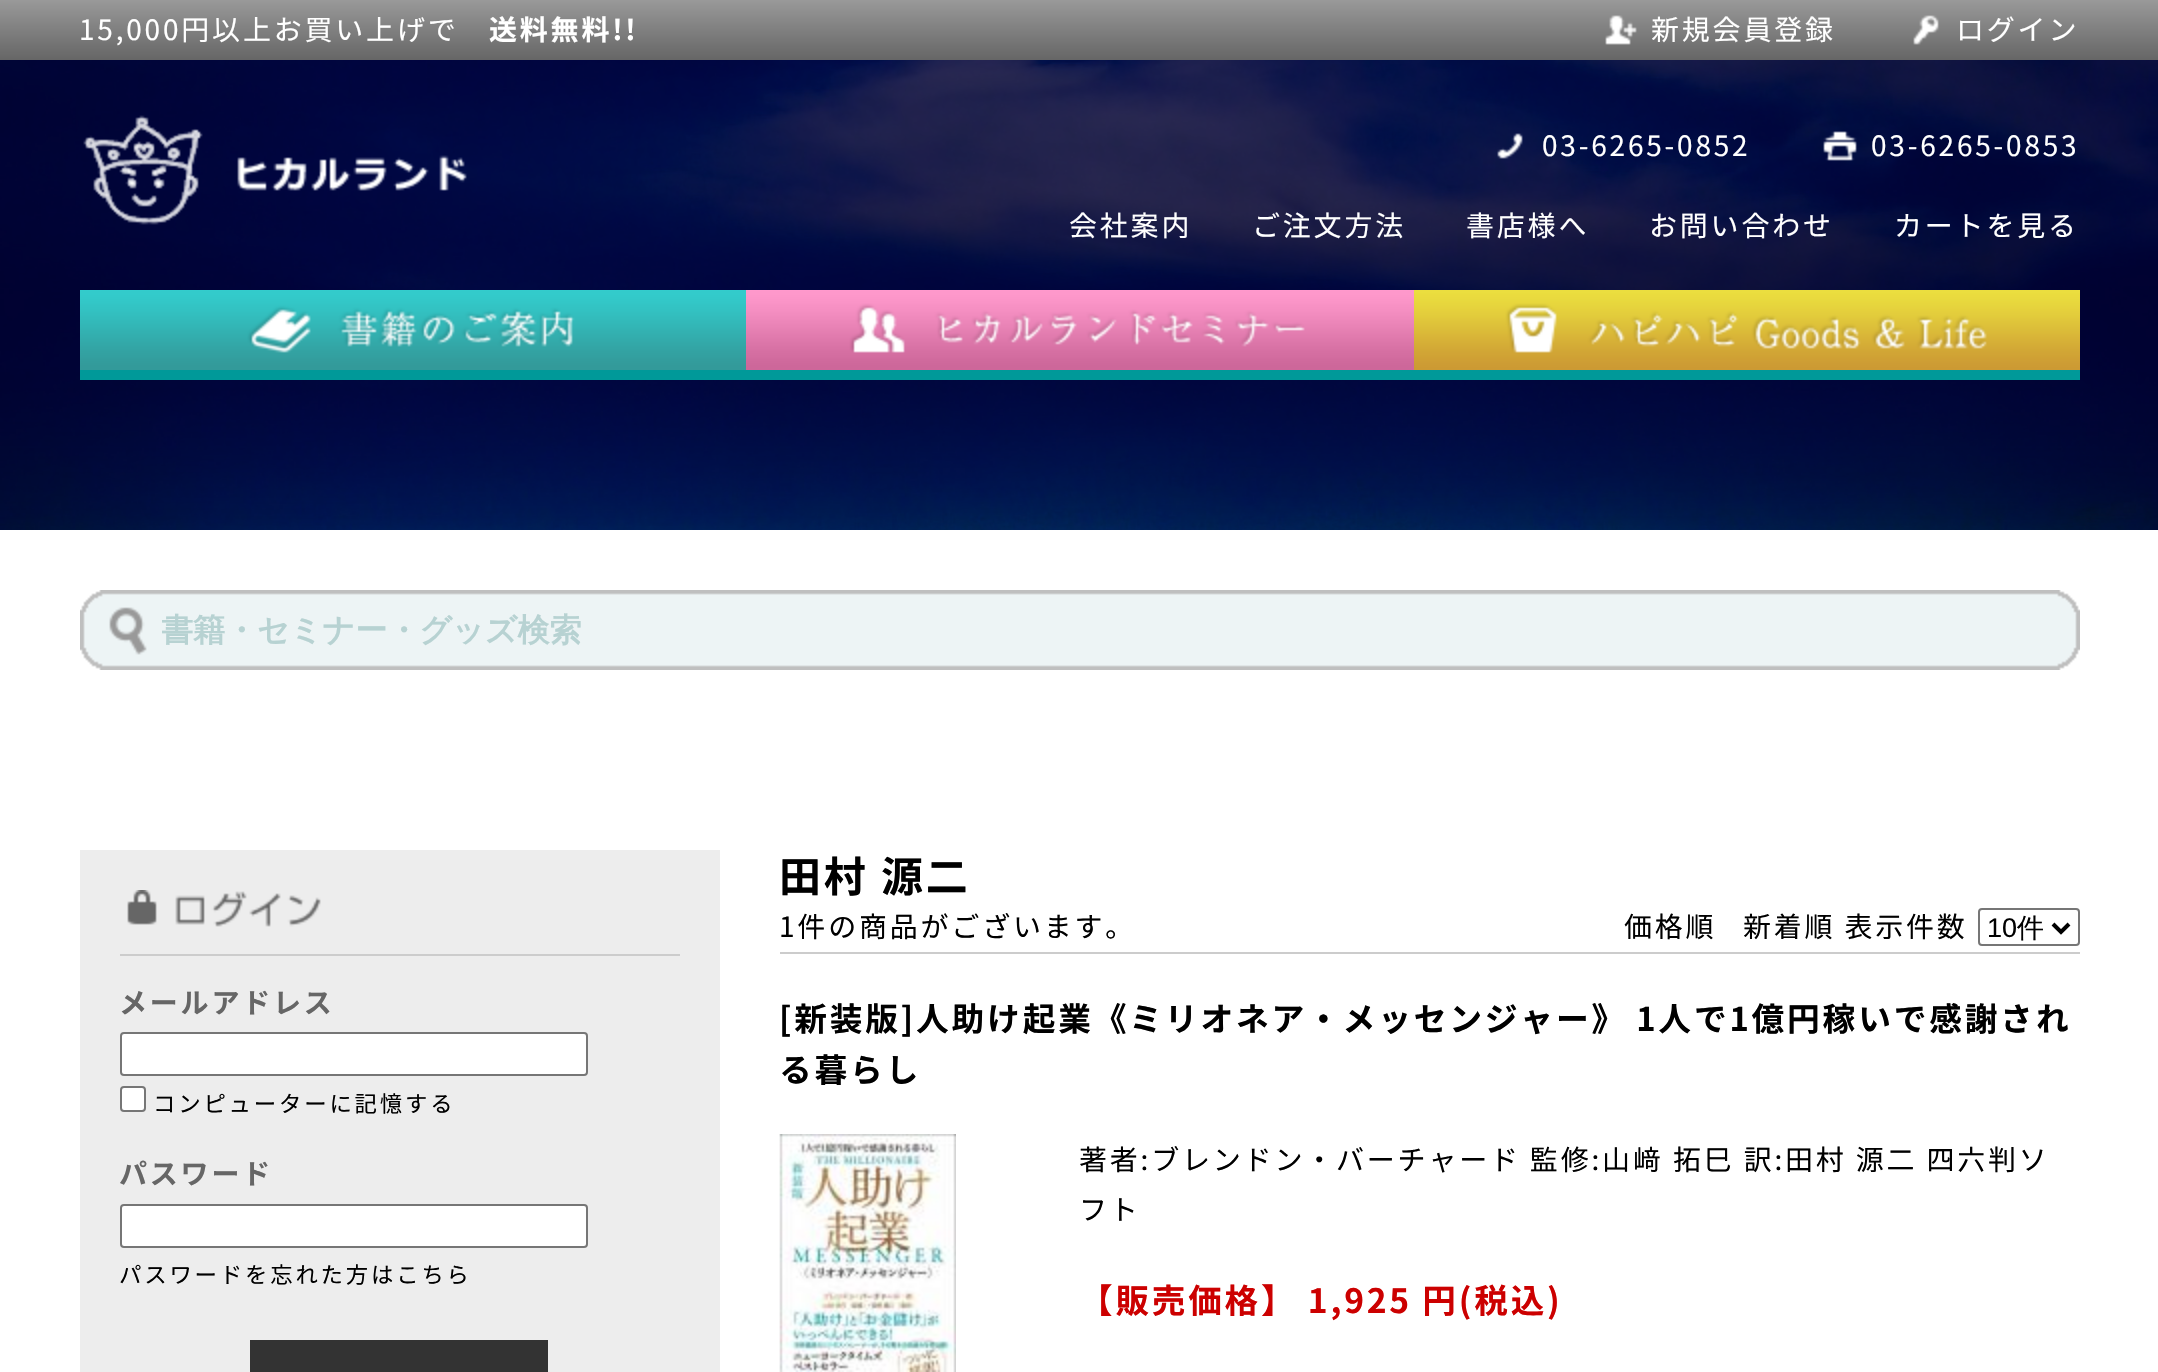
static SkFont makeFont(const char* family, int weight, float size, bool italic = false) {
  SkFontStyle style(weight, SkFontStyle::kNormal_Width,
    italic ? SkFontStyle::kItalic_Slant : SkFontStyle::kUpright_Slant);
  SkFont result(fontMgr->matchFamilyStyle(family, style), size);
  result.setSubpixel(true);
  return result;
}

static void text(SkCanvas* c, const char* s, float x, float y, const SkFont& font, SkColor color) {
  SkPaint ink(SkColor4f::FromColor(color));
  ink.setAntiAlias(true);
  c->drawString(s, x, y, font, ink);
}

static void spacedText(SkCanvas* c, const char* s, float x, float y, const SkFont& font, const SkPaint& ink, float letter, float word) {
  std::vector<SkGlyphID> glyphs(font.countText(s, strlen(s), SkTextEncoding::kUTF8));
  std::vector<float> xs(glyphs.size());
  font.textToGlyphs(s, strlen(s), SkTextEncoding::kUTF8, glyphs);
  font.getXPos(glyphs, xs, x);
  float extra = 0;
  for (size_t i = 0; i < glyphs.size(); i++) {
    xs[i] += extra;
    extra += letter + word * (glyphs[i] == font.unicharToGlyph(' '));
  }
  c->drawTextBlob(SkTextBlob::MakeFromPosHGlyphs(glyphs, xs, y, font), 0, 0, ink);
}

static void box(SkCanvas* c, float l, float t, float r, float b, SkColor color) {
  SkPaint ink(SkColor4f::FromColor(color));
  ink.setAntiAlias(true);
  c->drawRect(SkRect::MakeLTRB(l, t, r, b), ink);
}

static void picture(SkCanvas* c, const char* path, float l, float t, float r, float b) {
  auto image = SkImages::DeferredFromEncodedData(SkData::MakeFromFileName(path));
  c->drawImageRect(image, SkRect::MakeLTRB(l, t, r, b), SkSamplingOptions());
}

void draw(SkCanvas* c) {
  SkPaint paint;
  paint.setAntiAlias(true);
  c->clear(0xffffffff);
  picture(c, "img_14.png", 0, 60, 2158, 530);
  picture(c, "img_01.png", 0, 60, 2158, 530);
  {
    const SkColor colors[] = {0xff999999, 0xff666666};
    const float stops[] = {0, 1};
    const SkPoint ends[] = {{1079, 0}, {1079, 60}};
    paint.setShader(SkGradientShader::MakeLinear(ends, colors, stops, 2, SkTileMode::kClamp));
    paint.setAlpha(255);
  }
  c->drawRect(SkRect::MakeLTRB(0, 0, 2158, 60), paint);
  SkFont face1 = makeFont("Noto Sans JP", 400, 28);
  paint.setShader(nullptr);
  paint.setColor(0xffffffff);
  spacedText(c, "15,000円以上お買い上げで", 79, 40, face1, paint, 2.8f, 0);
  SkFont face2 = makeFont("Noto Sans JP", 700, 28);
  spacedText(c, "送料無料!!", 489, 40, face2, paint, 2.8f, 0);
  picture(c, "img_02.png", 1605, 15, 1637, 45);
  spacedText(c, "新規会員登録", 1651, 40, face1, paint, 2.8f, 0);
  picture(c, "img_03.png", 1913, 15, 1939, 45);
  spacedText(c, "ログイン", 1956, 40, face1, paint, 2.8f, 0);
  picture(c, "img_04.png", 83, 115, 467, 225);
  picture(c, "img_05.png", 1497, 133, 1523, 159);
  spacedText(c, "03-6265-0852", 1542, 156, face1, paint, 2.8f, 0);
  picture(c, "img_06.png", 1823, 131, 1857, 161);
  spacedText(c, "03-6265-0853", 1871, 156, face1, paint, 2.8f, 0);
  spacedText(c, "会社案内", 1069, 236, face1, paint, 2.8f, 0);
  spacedText(c, "ご注文方法", 1252, 236, face1, paint, 2.8f, 0);
  spacedText(c, "書店様へ", 1466, 236, face1, paint, 2.8f, 0);
  spacedText(c, "お問い合わせ", 1649, 236, face1, paint, 2.8f, 0);
  spacedText(c, "カートを見る", 1894, 236, face1, paint, 2.8f, 0);
  box(c, 80, 370, 2080, 380, 0xff009999);
  picture(c, "img_07.png", 80, 290, 746, 370);
  picture(c, "img_08.png", 746, 290, 1414, 370);
  picture(c, "img_09.png", 1414, 290, 2080, 370);
  picture(c, "img_10.png", 80, 590, 2080, 670);
  picture(c, "img_11.png", 109, 607, 147, 655);
  c->save();
  c->clipRect(SkRect::MakeLTRB(162, 612, 1962, 654));
  SkFont face3 = makeFont("WenQuanYi Zen Hei", 700, 32);
  text(c, "書籍・セミナー・グッズ検索", 161, 641, face3, 0xffb7d2d2);
  c->restore();
  box(c, 80, 850, 720, 1372, 0xffededed);
  box(c, 120, 954, 680, 956, 0xffcccccc);
  picture(c, "img_12.png", 127, 890, 321, 927);
  paint.setColor(0xff666666);
  spacedText(c, "メールアドレス", 119, 1013, face2, paint, 2.8f, 0);
  paint.setColor(0xffffffff);
  c->drawRoundRect(SkRect::MakeLTRB(121, 1033, 587, 1075), 3, 3, paint);
  paint.setStyle(SkPaint::kStroke_Style);
  paint.setStrokeWidth(2);
  paint.setColor(0xff767676);
  c->drawRoundRect(SkRect::MakeLTRB(121, 1033, 587, 1075), 3, 3, paint);
  paint.setStyle(SkPaint::kFill_Style);
  paint.setColor(0xffffffff);
  c->drawRoundRect(SkRect::MakeLTRB(121, 1087, 145, 1111), 3, 3, paint);
  paint.setStyle(SkPaint::kStroke_Style);
  paint.setColor(0xff767676);
  c->drawRoundRect(SkRect::MakeLTRB(121, 1087, 145, 1111), 3, 3, paint);
  SkFont face4 = makeFont("Noto Sans JP", 400, 22.4f);
  paint.setStyle(SkPaint::kFill_Style);
  paint.setColor(0xff000000);
  spacedText(c, "コンピューターに記憶する", 153, 1112, face4, paint, 2.8f, 0);
  paint.setColor(0xff666666);
  spacedText(c, "パスワード", 119, 1184, face2, paint, 2.8f, 0);
  paint.setColor(0xffffffff);
  c->drawRoundRect(SkRect::MakeLTRB(121, 1205, 587, 1247), 3, 3, paint);
  paint.setStyle(SkPaint::kStroke_Style);
  paint.setColor(0xff767676);
  c->drawRoundRect(SkRect::MakeLTRB(121, 1205, 587, 1247), 3, 3, paint);
  paint.setStyle(SkPaint::kFill_Style);
  paint.setColor(0xff000000);
  spacedText(c, "パスワードを忘れた方はこちら", 119, 1283, face4, paint, 2.8f, 0);
  box(c, 250, 1340, 548, 1372, 0xff333333);
  SkFont face5 = makeFont("Noto Sans JP", 700, 42);
  spacedText(c, "田村 源二", 779, 892, face5, paint, 2.8f, 0);
  box(c, 780, 952, 2080, 954, 0xffcccccc);
  spacedText(c, "1件の商品がございます。", 779, 937, face1, paint, 2.8f, 0);
  spacedText(c, "価格順", 1624, 937, face1, paint, 2.8f, 0);
  spacedText(c, "新着順 表示件数", 1743, 937, face1, paint, 2.8f, 0);
  paint.setStyle(SkPaint::kStroke_Style);
  paint.setColor(0xff767676);
  c->drawRoundRect(SkRect::MakeLTRB(1979, 909, 2079, 945), 3, 3, paint);
  paint.setStrokeWidth(4);
  paint.setColor(0xff000000);
  c->drawPath(SkPathBuilder().moveTo(2053, 924).lineTo(2061, 932).lineTo(2069, 924).detach(), paint);
  SkFont face6 = makeFont("Liberation Sans", 400, 27);
  text(c, "10", 1987, 937, face6, 0xff000000);
  SkFont face7 = makeFont("WenQuanYi Zen Hei", 500, 27);
  text(c, "件", 2017, 937, face7, 0xff000000);
  SkFont face8 = makeFont("Noto Sans JP", 700, 32.75f);
  paint.setStyle(SkPaint::kFill_Style);
  spacedText(c, "[新装版]人助け起業《ミリオネア・メッセンジャー》 1人で1億円稼いで感謝され", 779, 1031, face8, paint, 2.8f, -1);
  spacedText(c, "る暮らし", 779, 1082, face8, paint, 2.8f, 0);
  picture(c, "img_13.png", 779, 1134, 956, 1372);
  spacedText(c, "著者:ブレンドン・バーチャード 監修:山", 1079, 1170, face1, paint, 2.8f, 0);
  SkFont face9 = makeFont("IPAPGothic", 400, 28);
  spacedText(c, "﨑", 1633, 1170, face9, paint, 2.8f, 0);
  spacedText(c, "拓巳 訳:田村 源二 四六判ソ", 1673, 1170, face1, paint, 2.8f, 0);
  spacedText(c, "フト", 1079, 1220, face1, paint, 2.8f, 0);
  SkFont face10 = makeFont("Noto Sans JP", 700, 33.6f);
  paint.setColor(0xffcc0000);
  spacedText(c, "【販売価格】 1,925 円(税込)", 1079, 1313, face10, paint, 2.8f, 0);
}
